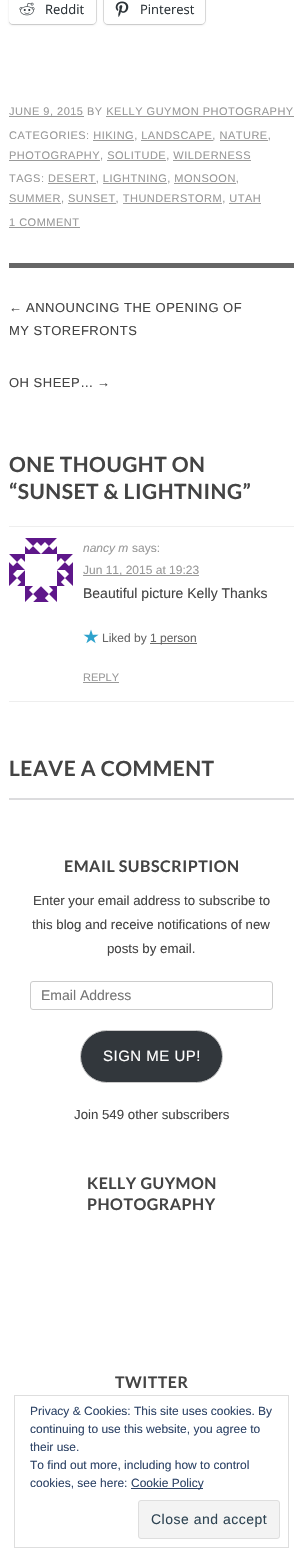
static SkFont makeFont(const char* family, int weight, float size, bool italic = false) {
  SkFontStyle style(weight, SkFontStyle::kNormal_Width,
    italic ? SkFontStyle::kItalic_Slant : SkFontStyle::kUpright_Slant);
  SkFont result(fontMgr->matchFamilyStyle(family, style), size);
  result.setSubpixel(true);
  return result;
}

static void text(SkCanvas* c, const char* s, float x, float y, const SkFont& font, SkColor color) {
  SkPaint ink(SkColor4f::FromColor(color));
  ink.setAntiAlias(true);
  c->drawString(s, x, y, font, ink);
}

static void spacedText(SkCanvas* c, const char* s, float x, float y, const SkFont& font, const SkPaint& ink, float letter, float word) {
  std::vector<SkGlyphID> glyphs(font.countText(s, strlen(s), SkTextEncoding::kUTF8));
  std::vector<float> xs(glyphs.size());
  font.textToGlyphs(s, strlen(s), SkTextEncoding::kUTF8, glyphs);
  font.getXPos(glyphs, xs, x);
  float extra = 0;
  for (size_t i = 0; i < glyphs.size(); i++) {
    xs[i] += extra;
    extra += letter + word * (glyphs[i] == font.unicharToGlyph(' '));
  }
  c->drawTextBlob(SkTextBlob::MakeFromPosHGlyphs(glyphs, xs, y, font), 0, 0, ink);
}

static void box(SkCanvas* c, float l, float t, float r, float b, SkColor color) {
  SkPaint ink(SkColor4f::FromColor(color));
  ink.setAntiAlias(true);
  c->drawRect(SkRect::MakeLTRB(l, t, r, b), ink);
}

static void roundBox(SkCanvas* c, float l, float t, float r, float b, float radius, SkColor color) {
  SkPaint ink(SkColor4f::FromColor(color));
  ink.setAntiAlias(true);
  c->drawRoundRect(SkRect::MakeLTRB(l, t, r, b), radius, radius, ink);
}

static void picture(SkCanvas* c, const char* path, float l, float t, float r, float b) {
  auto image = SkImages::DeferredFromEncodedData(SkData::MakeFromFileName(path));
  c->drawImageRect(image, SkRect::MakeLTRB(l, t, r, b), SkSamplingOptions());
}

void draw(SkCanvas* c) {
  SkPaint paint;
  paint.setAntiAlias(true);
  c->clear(0xffffffff);
  c->save();
  c->clipRect(SkRect::MakeLTRB(9, 0, 294, 100));
  paint.setStyle(SkPaint::kStroke_Style);
  paint.setStrokeWidth(1);
  paint.setColor(0xffe0e0e0);
  c->drawRoundRect(SkRect::MakeLTRB(8.5f, -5.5f, 96.5f, 24.5f), 4.5f, 4.5f, paint);
  c->restore();
  paint.setStyle(SkPaint::kFill_Style);
  paint.setColor(0x1f000000);
  paint.setMaskFilter(SkMaskFilter::MakeBlur(kNormal_SkBlurStyle, 1));
  c->drawRoundRect(SkRect::MakeLTRB(9, -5, 96, 25), 4, 4, paint);
  paint.setMaskFilter(nullptr);
  roundBox(c, 9, -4, 96, 24, 4, 0xffffffff);
  picture(c, "img_01.png", 19, 2, 35, 16);
  SkFont face1 = makeFont("Open Sans", 400, 13);
  text(c, "Reddit", 45, 14, face1, 0xff2c3338);
  paint.setStyle(SkPaint::kStroke_Style);
  paint.setColor(0xffe0e0e0);
  c->drawRoundRect(SkRect::MakeLTRB(103.5f, -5.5f, 205.5f, 24.5f), 4.5f, 4.5f, paint);
  paint.setStyle(SkPaint::kFill_Style);
  paint.setColor(0x1f000000);
  paint.setMaskFilter(SkMaskFilter::MakeBlur(kNormal_SkBlurStyle, 1));
  c->drawRoundRect(SkRect::MakeLTRB(104, -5, 205, 25), 4, 4, paint);
  paint.setMaskFilter(nullptr);
  roundBox(c, 104, -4, 205, 24, 4, 0xffffffff);
  picture(c, "img_02.png", 115, 1, 129, 17);
  text(c, "Pinterest", 140, 14, face1, 0xff2c3338);
  box(c, 9, 116, 84, 117, 0xff999999);
  SkFont face2 = makeFont("Liberation Sans", 400, 11);
  paint.setColor(0xff999999);
  spacedText(c, "JUNE 9, 2015 BY KELLY GUYMON PHOTOGRAPHY", 9, 115, face2, paint, 0.5f, 0);
  box(c, 106, 116, 294, 117, 0xff999999);
  spacedText(c, "CATEGORIES: HIKING, LANDSCAPE, NATURE,", 9, 139, face2, paint, 0.5f, 0);
  box(c, 93, 140, 134, 141, 0xff999999);
  box(c, 141, 140, 213, 141, 0xff999999);
  box(c, 220, 140, 268, 141, 0xff999999);
  box(c, 9, 160, 100, 161, 0xff999999);
  spacedText(c, "PHOTOGRAPHY, SOLITUDE, WILDERNESS", 9, 159, face2, paint, 0.5f, 0);
  box(c, 107, 160, 166, 161, 0xff999999);
  box(c, 173, 160, 251, 161, 0xff999999);
  spacedText(c, "TAGS: DESERT, LIGHTNING, MONSOON,", 9, 182, face2, paint, 0.5f, 0);
  box(c, 48, 183, 96, 184, 0xff999999);
  box(c, 103, 183, 167, 184, 0xff999999);
  box(c, 174, 183, 236, 184, 0xff999999);
  box(c, 9, 203, 61, 204, 0xff999999);
  spacedText(c, "SUMMER, SUNSET, THUNDERSTORM, UTAH", 9, 202, face2, paint, 0.5f, 0);
  box(c, 68, 203, 116, 204, 0xff999999);
  box(c, 123, 203, 222, 204, 0xff999999);
  box(c, 229, 203, 261, 204, 0xff999999);
  spacedText(c, "1 COMMENT", 9, 226, face2, paint, 0.5f, 0);
  box(c, 9, 227, 80, 228, 0xff999999);
  box(c, 9, 263, 294, 268, 0xff666666);
  SkFont face3 = makeFont("Liberation Sans", 400, 13);
  paint.setColor(0xff444444);
  spacedText(c, "←", 9, 312, face3, paint, 0.5f, 0);
  spacedText(c, "ANNOUNCING THE OPENING OF", 26, 312, face3, paint, 0.5f, 0);
  spacedText(c, "MY STOREFRONTS", 9, 335, face3, paint, 0.5f, 0);
  spacedText(c, "OH SHEEP…", 9, 387, face3, paint, 0.5f, 0);
  spacedText(c, "→", 97, 387, face3, paint, 0.5f, 0);
  SkFont face4 = makeFont("Lato", 700, 21);
  spacedText(c, "ONE THOUGHT ON", 9, 472, face4, paint, 0.5f, 0);
  spacedText(c, "“SUNSET & LIGHTNING”", 9, 499, face4, paint, 0.5f, 0);
  box(c, 9, 526, 294, 527, 0xffeeeeee);
  box(c, 9, 701, 294, 702, 0xffeeeeee);
  picture(c, "img_03.png", 9, 538, 73, 602);
  SkFont face5 = makeFont("Liberation Sans", 400, 12, true);
  text(c, "nancy m", 83, 552, face5, 0xff999999);
  SkFont face6 = makeFont("Liberation Sans", 400, 12);
  text(c, "says:", 132, 552, face6, 0xff999999);
  box(c, 83, 575, 199, 576, 0xff999999);
  text(c, "Jun 11, 2015 at 19:23", 83, 574, face6, 0xff999999);
  SkFont face7 = makeFont("Liberation Sans", 400, 14);
  text(c, "Beautiful picture Kelly Thanks", 83, 598, face7, 0xff444444);
  picture(c, "img_04.png", 83, 629, 99, 644);
  text(c, "Liked by", 102, 642, face6, 0xff666666);
  box(c, 150, 643, 197, 644, 0xff696969);
  text(c, "1 person", 150, 642, face6, 0xff666666);
  text(c, "REPLY", 83, 681, face2, 0xff999999);
  box(c, 83, 682, 119, 683, 0xff999999);
  spacedText(c, "LEAVE A COMMENT", 9, 776, face4, paint, 0.5f, 0);
  box(c, 9, 798, 294, 800, 0xffdcdcde);
  SkFont face8 = makeFont("Lato", 700, 16);
  spacedText(c, "EMAIL SUBSCRIPTION", 64, 872, face8, paint, 0.5f, 0);
  SkFont face9 = makeFont("Liberation Sans", 400, 13.25f);
  text(c, "Enter your email address to subscribe to", 33, 905, face9, 0xff444444);
  text(c, "this blog and receive notifications of new", 32, 929, face9, 0xff444444);
  text(c, "posts by email.", 107, 953, face9, 0xff444444);
  paint.setStyle(SkPaint::kStroke_Style);
  paint.setColor(0xffcccccc);
  c->drawRoundRect(SkRect::MakeLTRB(30.5f, 981.5f, 272.5f, 1009.5f), 2.5f, 2.5f, paint);
  text(c, "Email Address", 41, 1000, face7, 0xff757575);
  paint.setStyle(SkPaint::kFill_Style);
  paint.setColor(0xff32373c);
  c->drawRoundRect(SkRect::MakeLTRB(80.5f, 1030.5f, 222.5f, 1082.5f), 26, 26, paint);
  paint.setStyle(SkPaint::kStroke_Style);
  paint.setColor(0xffcccccc);
  c->drawRoundRect(SkRect::MakeLTRB(80.5f, 1030.5f, 222.5f, 1082.5f), 26, 26, paint);
  SkFont face10 = makeFont("Liberation Sans", 400, 15);
  paint.setStyle(SkPaint::kFill_Style);
  paint.setColor(0xffffffff);
  spacedText(c, "SIGN ME UP!", 103, 1061, face10, paint, 0.5f, 0);
  text(c, "Join 549 other subscribers", 74, 1119, face9, 0xff444444);
  paint.setColor(0xff444444);
  spacedText(c, "KELLY GUYMON", 87, 1189, face8, paint, 0.5f, 0);
  spacedText(c, "PHOTOGRAPHY", 87, 1210, face8, paint, 0.5f, 0);
  spacedText(c, "TWITTER", 115, 1388, face8, paint, 0.5f, 0);
  paint.setStyle(SkPaint::kStroke_Style);
  paint.setColor(0xffdedede);
  c->drawRect(SkRect::MakeLTRB(14.5f, 1395.5f, 288.5f, 1547.5f), paint);
  text(c, "Privacy & Cookies: This site uses cookies. By", 30, 1415, face6, 0xff2e4467);
  text(c, "continuing to use this website, you agree to", 30, 1433, face6, 0xff2e4467);
  text(c, "their use.", 30, 1451, face6, 0xff2e4467);
  text(c, "To find out more, including how to control", 30, 1469, face6, 0xff2e4467);
  text(c, "cookies, see here:", 30, 1487, face6, 0xff2e4467);
  box(c, 131, 1488, 203, 1489, 0xff2e4467);
  text(c, "Cookie Policy", 131, 1487, face6, 0xff2e4467);
  paint.setStyle(SkPaint::kFill_Style);
  paint.setColor(0xfff3f3f3);
  c->drawRoundRect(SkRect::MakeLTRB(138.5f, 1500.5f, 279.5f, 1538.5f), 2.5f, 2.5f, paint);
  paint.setStyle(SkPaint::kStroke_Style);
  paint.setColor(0xffdedede);
  c->drawRoundRect(SkRect::MakeLTRB(138.5f, 1500.5f, 279.5f, 1538.5f), 2.5f, 2.5f, paint);
  paint.setStyle(SkPaint::kFill_Style);
  paint.setColor(0xff2e4453);
  spacedText(c, "Close and accept", 151, 1524, face7, paint, 0.5f, 0);
}
